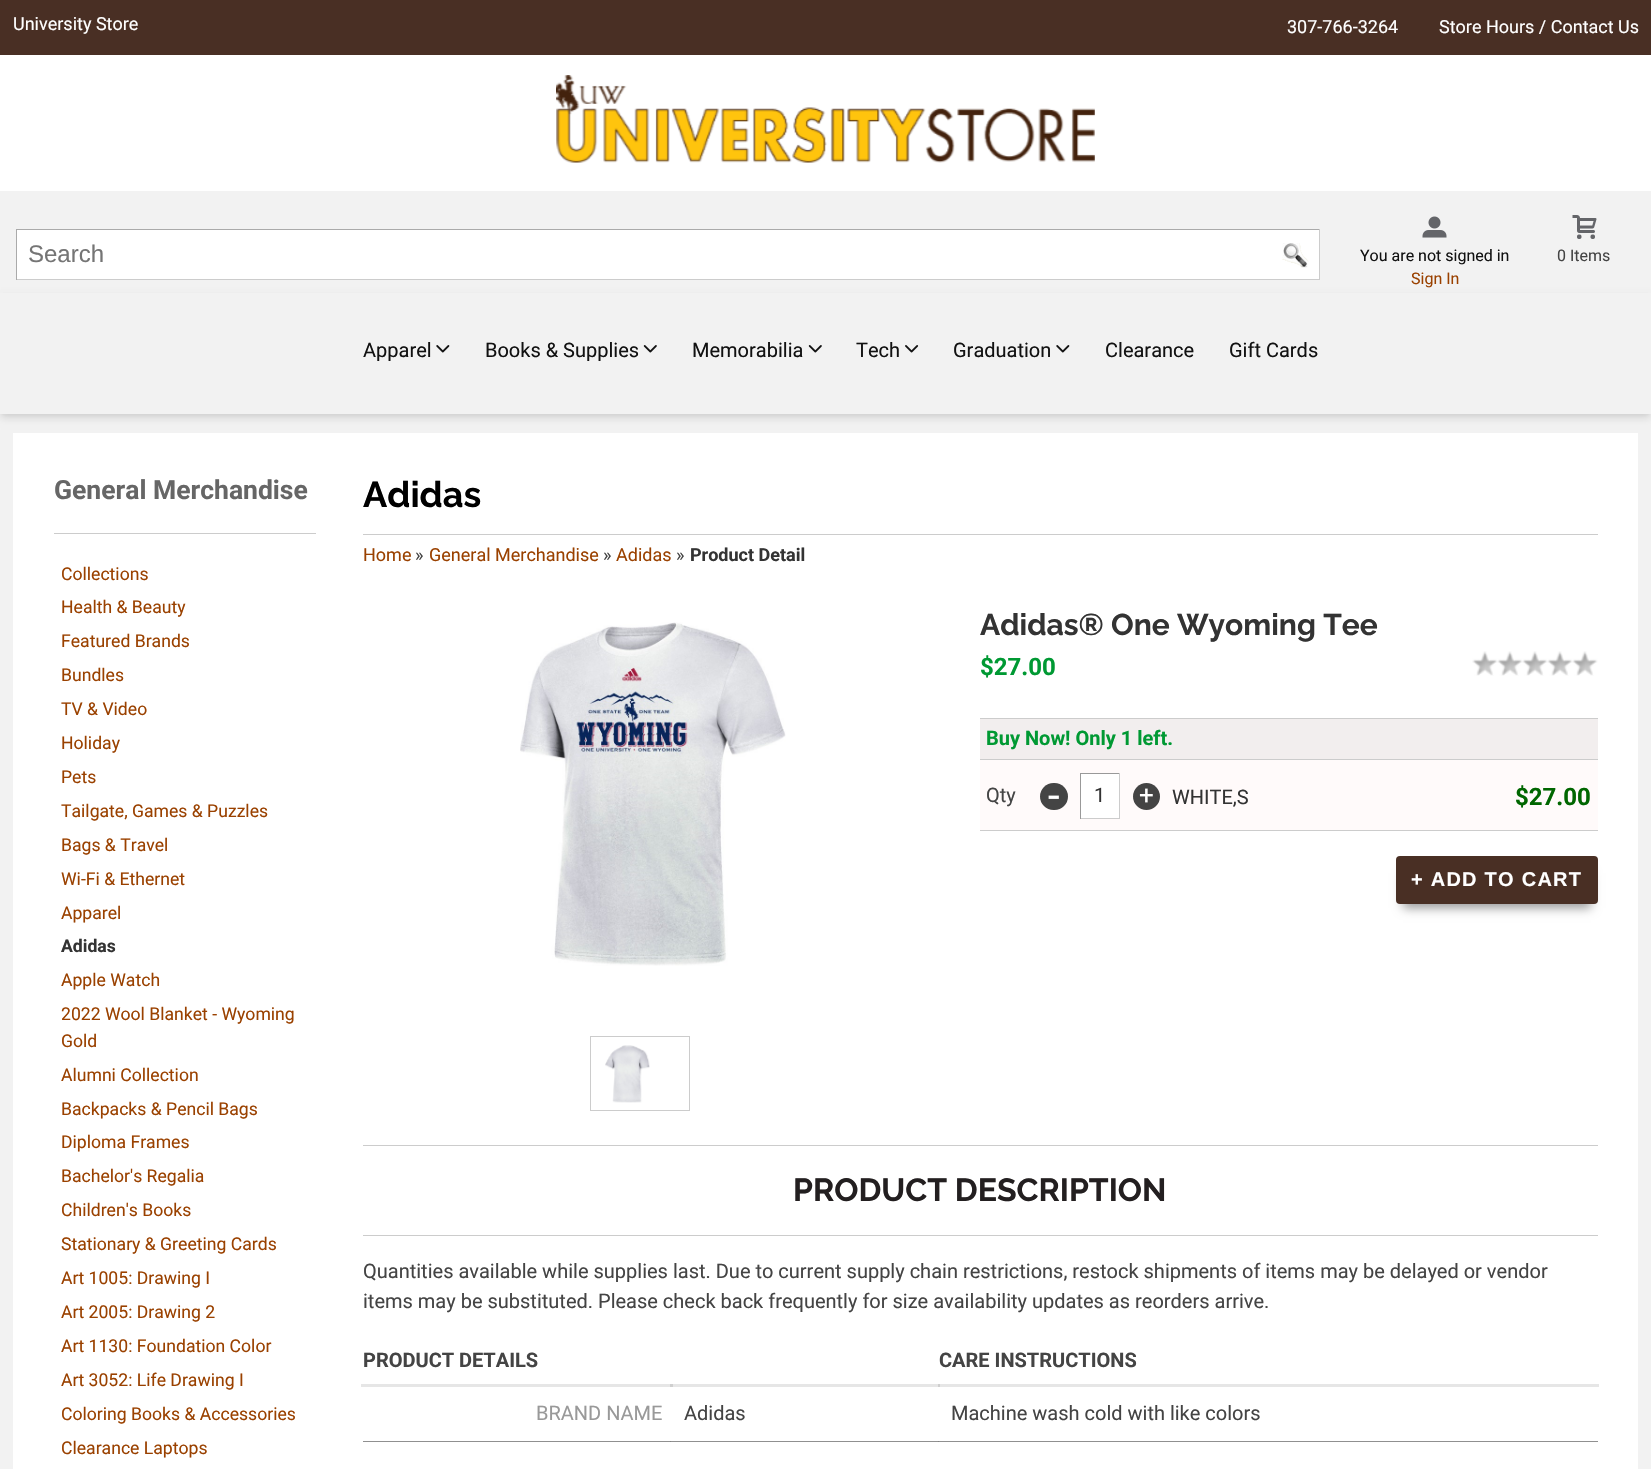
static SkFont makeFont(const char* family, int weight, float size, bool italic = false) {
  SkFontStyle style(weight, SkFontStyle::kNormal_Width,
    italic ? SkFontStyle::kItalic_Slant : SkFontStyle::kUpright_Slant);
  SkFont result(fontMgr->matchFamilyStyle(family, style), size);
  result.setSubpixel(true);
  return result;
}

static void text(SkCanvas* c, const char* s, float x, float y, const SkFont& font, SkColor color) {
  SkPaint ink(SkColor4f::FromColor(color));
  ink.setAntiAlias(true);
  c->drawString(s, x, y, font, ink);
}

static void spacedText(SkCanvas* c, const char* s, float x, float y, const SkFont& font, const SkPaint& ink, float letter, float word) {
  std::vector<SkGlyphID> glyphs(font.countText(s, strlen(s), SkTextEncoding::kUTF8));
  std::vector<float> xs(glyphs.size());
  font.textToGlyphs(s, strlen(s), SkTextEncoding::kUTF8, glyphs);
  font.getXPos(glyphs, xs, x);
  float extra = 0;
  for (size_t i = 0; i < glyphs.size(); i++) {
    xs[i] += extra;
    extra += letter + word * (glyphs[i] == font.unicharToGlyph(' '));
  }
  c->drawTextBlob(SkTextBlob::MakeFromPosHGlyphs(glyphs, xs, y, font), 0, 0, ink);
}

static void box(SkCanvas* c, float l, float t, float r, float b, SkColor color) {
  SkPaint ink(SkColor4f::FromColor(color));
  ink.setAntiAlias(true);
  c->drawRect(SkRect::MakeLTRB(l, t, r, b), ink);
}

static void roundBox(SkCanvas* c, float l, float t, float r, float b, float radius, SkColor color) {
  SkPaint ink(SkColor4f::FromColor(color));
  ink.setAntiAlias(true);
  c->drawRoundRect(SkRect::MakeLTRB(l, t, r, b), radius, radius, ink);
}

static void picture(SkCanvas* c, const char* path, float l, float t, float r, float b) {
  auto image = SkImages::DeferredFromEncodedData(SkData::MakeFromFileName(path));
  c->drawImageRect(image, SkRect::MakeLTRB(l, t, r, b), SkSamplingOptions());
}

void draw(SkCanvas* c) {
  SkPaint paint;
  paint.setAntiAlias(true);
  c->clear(0xffffffff);
  box(c, 361, 1384, 940, 1387, 0xffe6e6e6);
  box(c, 670, 1384, 673, 1387, 0xffcfcfcf);
  box(c, 0, 0, 1651, 55, 0xff492f24);
  SkFont face1 = makeFont("Roboto", 400, 18);
  text(c, "University Store", 13, 30, face1, 0xffffffff);
  text(c, "307-766-3264", 1287, 33, face1, 0xffffffff);
  text(c, "Store Hours / Contact Us", 1439, 33, face1, 0xffffffff);
  picture(c, "img_01.png", 556, 75, 1095, 163);
  box(c, 0, 191, 1651, 293, 0xfff2f2f2);
  box(c, 17, 230, 1319, 279, 0xffffffff);
  box(c, 16, 229, 1320, 230, 0xffaaaaaa);
  box(c, 1319, 229, 1320, 280, 0xffcccccc);
  box(c, 16, 279, 1320, 280, 0xffcccccc);
  box(c, 16, 229, 17, 280, 0xffaaaaaa);
  SkFont face2 = makeFont("Liberation Sans", 400, 24);
  text(c, "Search", 28, 262, face2, 0xff757575);
  picture(c, "img_02.png", 1282, 243, 1309, 268);
  picture(c, "img_03.png", 1422, 216, 1447, 238);
  SkFont face3 = makeFont("Roboto", 400, 16);
  text(c, "You are not signed in", 1360, 261, face3, 0xff121212);
  text(c, "Sign In", 1411, 284, face3, 0xff9a4100);
  picture(c, "img_04.png", 1572, 215, 1597, 239);
  text(c, "0 Items", 1557, 261, face3, 0xff444444);
  box(c, 0, 414, 1651, 420, 0xfff2f2f2);
  paint.setStyle(SkPaint::kStroke_Style);
  paint.setStrokeWidth(13);
  paint.setColor(0xfff2f2f2);
  c->drawRect(SkRect::MakeLTRB(6.5f, 426.5f, 1644.5f, 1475.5f), paint);
  paint.setStyle(SkPaint::kFill_Style);
  paint.setColor(0x0f000000);
  paint.setMaskFilter(SkMaskFilter::MakeBlur(kNormal_SkBlurStyle, 2.5f));
  c->drawRect(SkRect::MakeLTRB(1, 296, 1650, 415), paint);
  paint.setMaskFilter(nullptr);
  paint.setColor(0x1a000000);
  paint.setMaskFilter(SkMaskFilter::MakeBlur(kNormal_SkBlurStyle, 4));
  c->drawRect(SkRect::MakeLTRB(1, 299, 1650, 418), paint);
  paint.setMaskFilter(nullptr);
  box(c, 0, 293, 1651, 414, 0xfff2f2f2);
  SkFont face4 = makeFont("Roboto", 400, 20);
  text(c, "Apparel", 363, 357, face4, 0xff121212);
  picture(c, "img_05.png", 436, 345, 450, 353);
  text(c, "Books & Supplies", 485, 357, face4, 0xff121212);
  picture(c, "img_06.png", 643, 345, 657, 353);
  text(c, "Memorabilia", 692, 357, face4, 0xff121212);
  picture(c, "img_06.png", 808, 345, 822, 353);
  text(c, "Tech", 856, 357, face4, 0xff121212);
  picture(c, "img_07.png", 905, 345, 919, 353);
  text(c, "Graduation", 953, 357, face4, 0xff121212);
  picture(c, "img_05.png", 1056, 345, 1070, 353);
  text(c, "Clearance", 1105, 357, face4, 0xff121212);
  text(c, "Gift Cards", 1229, 357, face4, 0xff121212);
  SkFont face5 = makeFont("Roboto", 700, 26.5f);
  text(c, "General Merchandise", 54, 499, face5, 0xff666666);
  box(c, 54, 533, 316, 534, 0xffcccccc);
  SkFont face6 = makeFont("Roboto", 400, 17.6f);
  text(c, "Collections", 61, 580, face6, 0xff9a4100);
  text(c, "Health & Beauty", 61, 613, face6, 0xff9a4100);
  text(c, "Featured Brands", 61, 647, face6, 0xff9a4100);
  text(c, "Bundles", 61, 681, face6, 0xff9a4100);
  text(c, "TV & Video", 61, 715, face6, 0xff9a4100);
  text(c, "Holiday", 61, 749, face6, 0xff9a4100);
  text(c, "Pets", 61, 783, face6, 0xff9a4100);
  text(c, "Tailgate, Games & Puzzles", 61, 817, face6, 0xff9a4100);
  text(c, "Bags & Travel", 61, 851, face6, 0xff9a4100);
  text(c, "Wi-Fi & Ethernet", 61, 885, face6, 0xff9a4100);
  text(c, "Apparel", 61, 919, face6, 0xff9a4100);
  SkFont face7 = makeFont("Roboto", 700, 17.6f);
  text(c, "Adidas", 61, 952, face7, 0xff333333);
  text(c, "Apple Watch", 61, 986, face6, 0xff9a4100);
  text(c, "2022 Wool Blanket - Wyoming", 61, 1020, face6, 0xff9a4100);
  text(c, "Gold", 61, 1047, face6, 0xff9a4100);
  text(c, "Alumni Collection", 61, 1081, face6, 0xff9a4100);
  text(c, "Backpacks & Pencil Bags", 61, 1115, face6, 0xff9a4100);
  text(c, "Diploma Frames", 61, 1148, face6, 0xff9a4100);
  text(c, "Bachelor's Regalia", 61, 1182, face6, 0xff9a4100);
  text(c, "Children's Books", 61, 1216, face6, 0xff9a4100);
  text(c, "Stationary & Greeting Cards", 61, 1250, face6, 0xff9a4100);
  text(c, "Art 1005: Drawing I", 61, 1284, face6, 0xff9a4100);
  text(c, "Art 2005: Drawing 2", 61, 1318, face6, 0xff9a4100);
  text(c, "Art 1130: Foundation Color", 61, 1352, face6, 0xff9a4100);
  text(c, "Art 3052: Life Drawing I", 61, 1386, face6, 0xff9a4100);
  text(c, "Coloring Books & Accessories", 61, 1420, face6, 0xff9a4100);
  text(c, "Clearance Laptops", 61, 1454, face6, 0xff9a4100);
  SkFont face8 = makeFont("Raleway", 700, 36);
  text(c, "Adidas", 363, 507, face8, 0xff000000);
  box(c, 363, 534, 1598, 535, 0xffcccccc);
  text(c, "Home", 363, 561, face1, 0xff9a4100);
  text(c, "»", 415, 561, face1, 0xff444444);
  text(c, "General Merchandise", 429, 561, face1, 0xff9a4100);
  text(c, "»", 603, 561, face1, 0xff444444);
  text(c, "Adidas", 616, 561, face1, 0xff9a4100);
  text(c, "»", 676, 561, face1, 0xff444444);
  SkFont face9 = makeFont("Roboto", 700, 18);
  text(c, "Product Detail", 690, 561, face9, 0xff333333);
  picture(c, "img_08.png", 520, 622, 786, 966);
  SkFont face10 = makeFont("Raleway", 700, 30);
  text(c, "Adidas® One Wyoming Tee", 980, 635, face10, 0xff333333);
  SkFont face11 = makeFont("Roboto", 700, 24);
  text(c, "$27.00", 980, 675, face11, 0xff009933);
  picture(c, "img_09.png", 1472, 651, 1485, 676);
  picture(c, "img_10.png", 1485, 651, 1498, 676);
  picture(c, "img_11.png", 1497, 651, 1510, 676);
  picture(c, "img_10.png", 1510, 651, 1523, 676);
  picture(c, "img_11.png", 1522, 651, 1535, 676);
  picture(c, "img_12.png", 1535, 651, 1548, 676);
  picture(c, "img_13.png", 1547, 651, 1560, 676);
  picture(c, "img_12.png", 1560, 651, 1573, 676);
  picture(c, "img_11.png", 1572, 651, 1585, 676);
  picture(c, "img_10.png", 1585, 651, 1598, 676);
  box(c, 980, 760, 1598, 830, 0xfffffafa);
  box(c, 980, 718, 1598, 719, 0xffcccccc);
  box(c, 980, 830, 1598, 831, 0xffcccccc);
  box(c, 980, 719, 1598, 759, 0xfff2eeee);
  box(c, 980, 759, 1598, 760, 0xffcccccc);
  SkFont face12 = makeFont("Roboto", 700, 20);
  text(c, "Buy Now! Only 1 left.", 986, 745, face12, 0xff009933);
  text(c, "Qty", 986, 802, face4, 0xff444444);
  roundBox(c, 1040, 783, 1068, 810, 13.5f, 0xff444444);
  SkFont face13 = makeFont("Roboto", 400, 42);
  text(c, "-", 1048, 810, face13, 0xffffffff);
  box(c, 1081, 774, 1119, 818, 0xffffffff);
  box(c, 1080, 773, 1120, 774, 0xff999999);
  box(c, 1119, 773, 1120, 819, 0xffcccccc);
  box(c, 1080, 818, 1120, 819, 0xffcccccc);
  box(c, 1080, 773, 1081, 819, 0xff999999);
  text(c, "1", 1094, 802, face4, 0xff333333);
  paint.setColor(0xff444444);
  c->drawCircle(1146.5f, 796.5f, 13.5f, paint);
  SkFont face14 = makeFont("Roboto", 400, 26);
  text(c, "+", 1139, 804, face14, 0xffffffff);
  text(c, "WHITE,S", 1172, 804, face4, 0xff333333);
  text(c, "$27.00", 1515, 805, face11, 0xff006600);
  paint.setColor(0x66000000);
  paint.setMaskFilter(SkMaskFilter::MakeBlur(kNormal_SkBlurStyle, 5));
  c->drawRect(SkRect::MakeLTRB(1403, 873, 1591, 908), paint);
  paint.setMaskFilter(nullptr);
  roundBox(c, 1396, 856, 1598, 904, 4, 0xff492f24);
  SkFont face15 = makeFont("Liberation Sans", 700, 20);
  paint.setColor(0xffffffff);
  spacedText(c, "+ ADD TO CART", 1411, 886, face15, paint, 1.25f, 0);
  paint.setStyle(SkPaint::kStroke_Style);
  paint.setStrokeWidth(1);
  paint.setColor(0xffcccccc);
  c->drawRect(SkRect::MakeLTRB(590.5f, 1036.5f, 689.5f, 1110.5f), paint);
  picture(c, "img_14.png", 605, 1045, 650, 1103);
  box(c, 363, 1145, 1598, 1146, 0xffcccccc);
  box(c, 363, 1235, 1598, 1236, 0xffcccccc);
  SkFont face16 = makeFont("Raleway", 700, 32);
  text(c, "PRODUCT DESCRIPTION", 793, 1201, face16, 0xff231f20);
  text(c, "Quantities available while supplies last. Due to current supply chain restrictions, restock shipments of items may be delayed or vendor", 363, 1278, face4, 0xff444444);
  text(c, "items may be substituted. Please check back frequently for size availability updates as reorders arrive.", 363, 1308, face4, 0xff444444);
  text(c, "PRODUCT DETAILS", 363, 1367, face12, 0xff444444);
  text(c, "CARE INSTRUCTIONS", 939, 1367, face12, 0xff444444);
  box(c, 363, 1441, 1598, 1442, 0xff909090);
  box(c, 670, 1441, 671, 1442, 0xff828282);
  text(c, "BRAND NAME", 536, 1420, face4, 0xff999999);
  text(c, "Adidas", 684, 1420, face4, 0xff444444);
  box(c, 938, 1384, 1599, 1387, 0xffe6e6e6);
  box(c, 938, 1384, 940, 1387, 0xffcfcfcf);
  text(c, "Machine wash cold with like colors", 951, 1420, face4, 0xff444444);
  box(c, 938, 1441, 939, 1442, 0xff828282);
}
